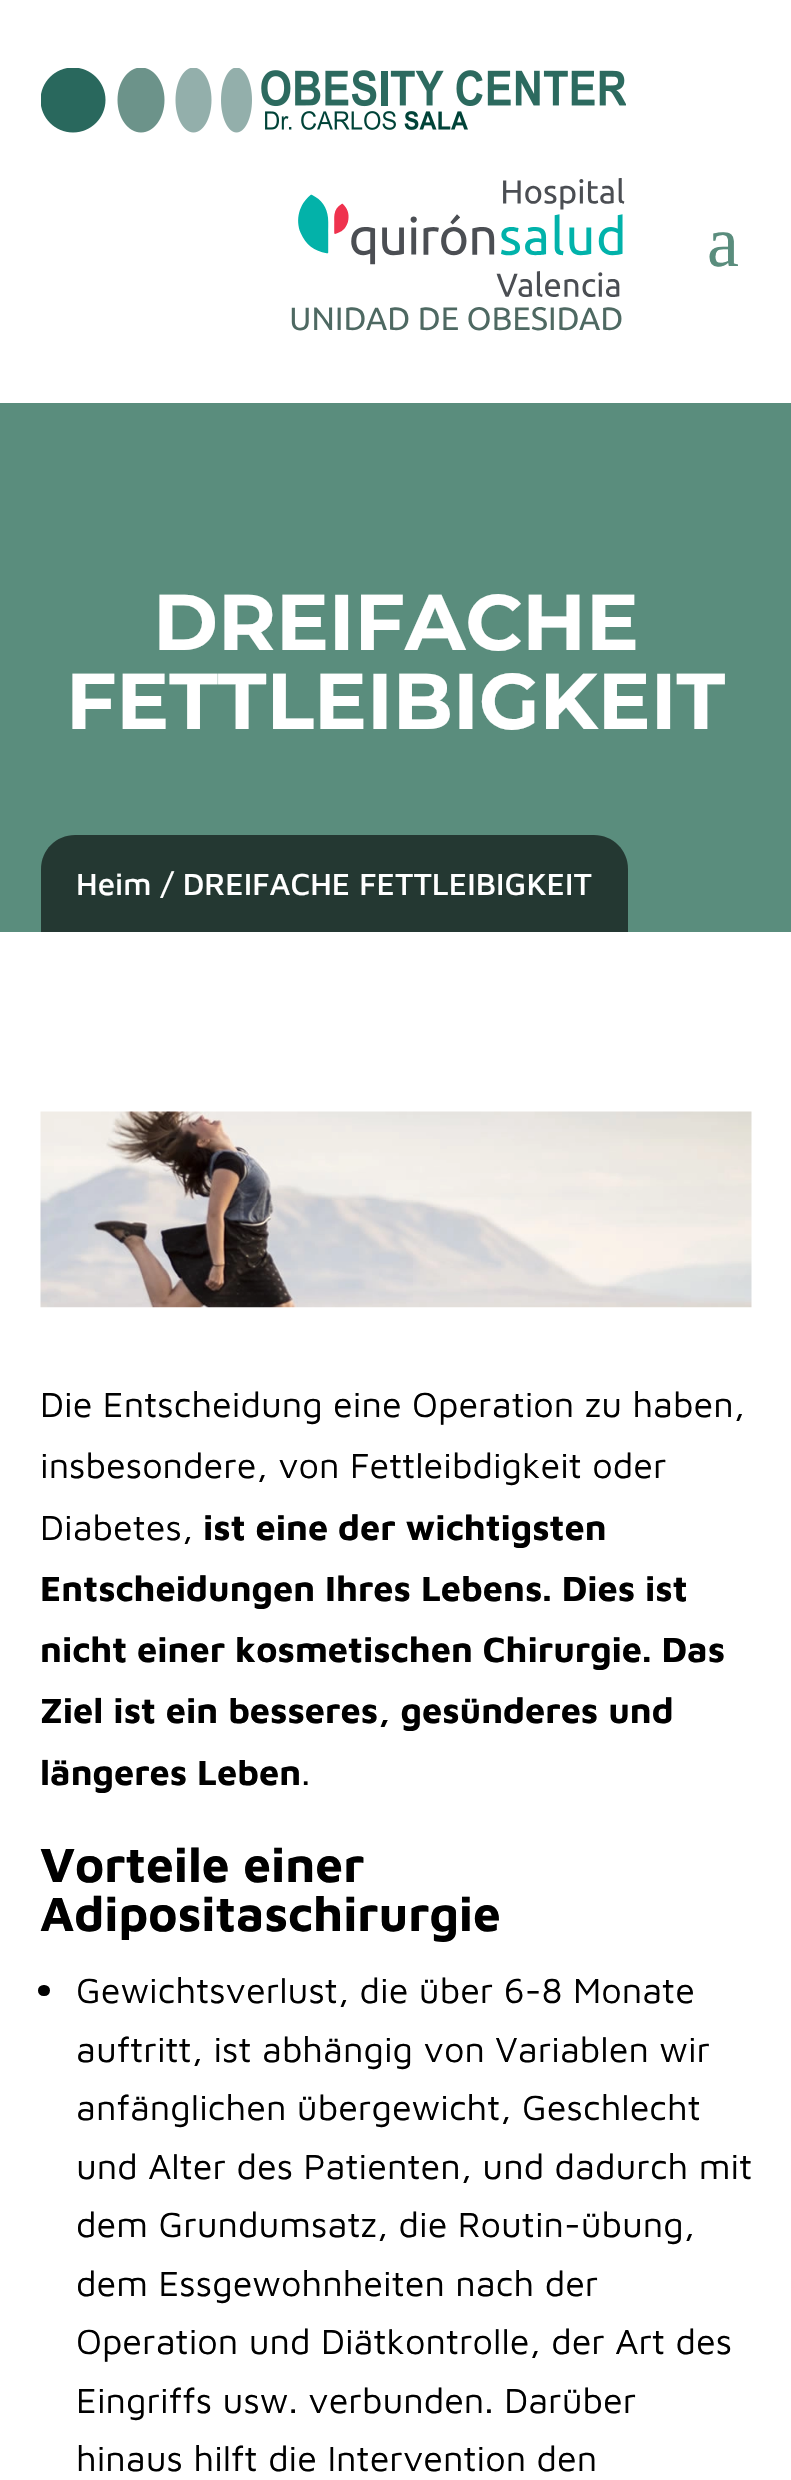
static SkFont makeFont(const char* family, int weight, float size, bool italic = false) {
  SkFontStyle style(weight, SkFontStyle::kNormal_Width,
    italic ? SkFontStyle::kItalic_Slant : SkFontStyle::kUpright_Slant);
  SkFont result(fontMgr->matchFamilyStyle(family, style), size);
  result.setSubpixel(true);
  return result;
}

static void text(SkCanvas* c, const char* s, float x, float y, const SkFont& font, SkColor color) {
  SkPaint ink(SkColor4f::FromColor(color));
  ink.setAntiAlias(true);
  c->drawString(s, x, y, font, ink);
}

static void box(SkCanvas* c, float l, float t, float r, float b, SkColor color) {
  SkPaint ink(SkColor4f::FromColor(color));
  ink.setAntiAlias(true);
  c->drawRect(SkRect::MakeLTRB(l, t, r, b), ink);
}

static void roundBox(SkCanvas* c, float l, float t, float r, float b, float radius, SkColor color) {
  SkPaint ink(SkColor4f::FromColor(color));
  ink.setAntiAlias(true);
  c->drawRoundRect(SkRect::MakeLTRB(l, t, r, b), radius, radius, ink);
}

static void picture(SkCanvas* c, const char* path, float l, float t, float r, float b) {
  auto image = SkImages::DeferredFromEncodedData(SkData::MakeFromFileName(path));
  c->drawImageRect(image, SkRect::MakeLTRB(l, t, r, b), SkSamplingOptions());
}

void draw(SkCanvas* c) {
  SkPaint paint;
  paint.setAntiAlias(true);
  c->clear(0xffffffff);
  picture(c, "img_01.png", 41, 68, 626, 133);
  picture(c, "img_02.png", 291, 178, 625, 331);
  SkFont face1 = makeFont("Liberation Serif", 400, 72);
  text(c, "a", 707, 266, face1, 0xff5a8d7d);
  box(c, 0, 403, 791, 932, 0xff5a8d7d);
  SkFont face2 = makeFont("Montserrat", 700, 78.75f);
  text(c, "DREIFACHE", 153, 650, face2, 0xffffffff);
  text(c, "FETTLEIBIGKEIT", 66, 729, face2, 0xffffffff);
  paint.setColor(0xff243832);
  c->drawPath(SkPathBuilder().moveTo(75, 835).lineTo(594, 835).cubicTo(613, 835, 628, 850, 628, 869).lineTo(628, 932).lineTo(41, 932).lineTo(41, 869).cubicTo(41, 850, 56, 835, 75, 835).close().detach(), paint);
  SkFont face3 = makeFont("Maven Pro", 500, 31.5f);
  text(c, "Heim / DREIFACHE FETTLEIBIGKEIT", 76, 895, face3, 0xffffffff);
  picture(c, "img_03.png", 40, 1111, 752, 1308);
  SkFont face4 = makeFont("Maven Pro", 400, 36);
  text(c, "Die Entscheidung eine Operation zu haben,", 40, 1417, face4, 0xff000000);
  text(c, "insbesondere, von Fettleibdigkeit oder", 40, 1478, face4, 0xff000000);
  text(c, "Diabetes,", 40, 1540, face4, 0xff000000);
  SkFont face5 = makeFont("Maven Pro", 700, 36);
  text(c, "ist eine der wichtigsten", 203, 1540, face5, 0xff000000);
  text(c, "Entscheidungen Ihres Lebens. Dies ist", 40, 1601, face5, 0xff000000);
  text(c, "nicht einer kosmetischen Chirurgie. Das", 40, 1662, face5, 0xff000000);
  text(c, "Ziel ist ein besseres, gesünderes und", 40, 1723, face5, 0xff000000);
  text(c, "längeres Leben", 40, 1785, face5, 0xff000000);
  text(c, ".", 301, 1785, face4, 0xff000000);
  SkFont face6 = makeFont("Maven Pro", 700, 49.5f);
  text(c, "Vorteile einer", 40, 1882, face6, 0xff000000);
  text(c, "Adipositaschirurgie", 40, 1931, face6, 0xff000000);
  roundBox(c, 38, 1985, 50, 1996, 5.5f, 0xff000000);
  text(c, "Gewichtsverlust, die über 6-8 Monate", 76, 2003, face4, 0xff000000);
  text(c, "auftritt, ist abhängig von Variablen wir", 76, 2062, face4, 0xff000000);
  text(c, "anfänglichen übergewicht, Geschlecht", 76, 2120, face4, 0xff000000);
  text(c, "und Alter des Patienten, und dadurch mit", 76, 2179, face4, 0xff000000);
  text(c, "dem Grundumsatz, die Routin-übung,", 76, 2237, face4, 0xff000000);
  text(c, "dem Essgewohnheiten nach der", 76, 2296, face4, 0xff000000);
  text(c, "Operation und Diätkontrolle, der Art des", 76, 2354, face4, 0xff000000);
  text(c, "Eingriffs usw. verbunden. Darüber", 76, 2413, face4, 0xff000000);
  text(c, "hinaus hilft die Intervention den", 76, 2471, face4, 0xff000000);
}
